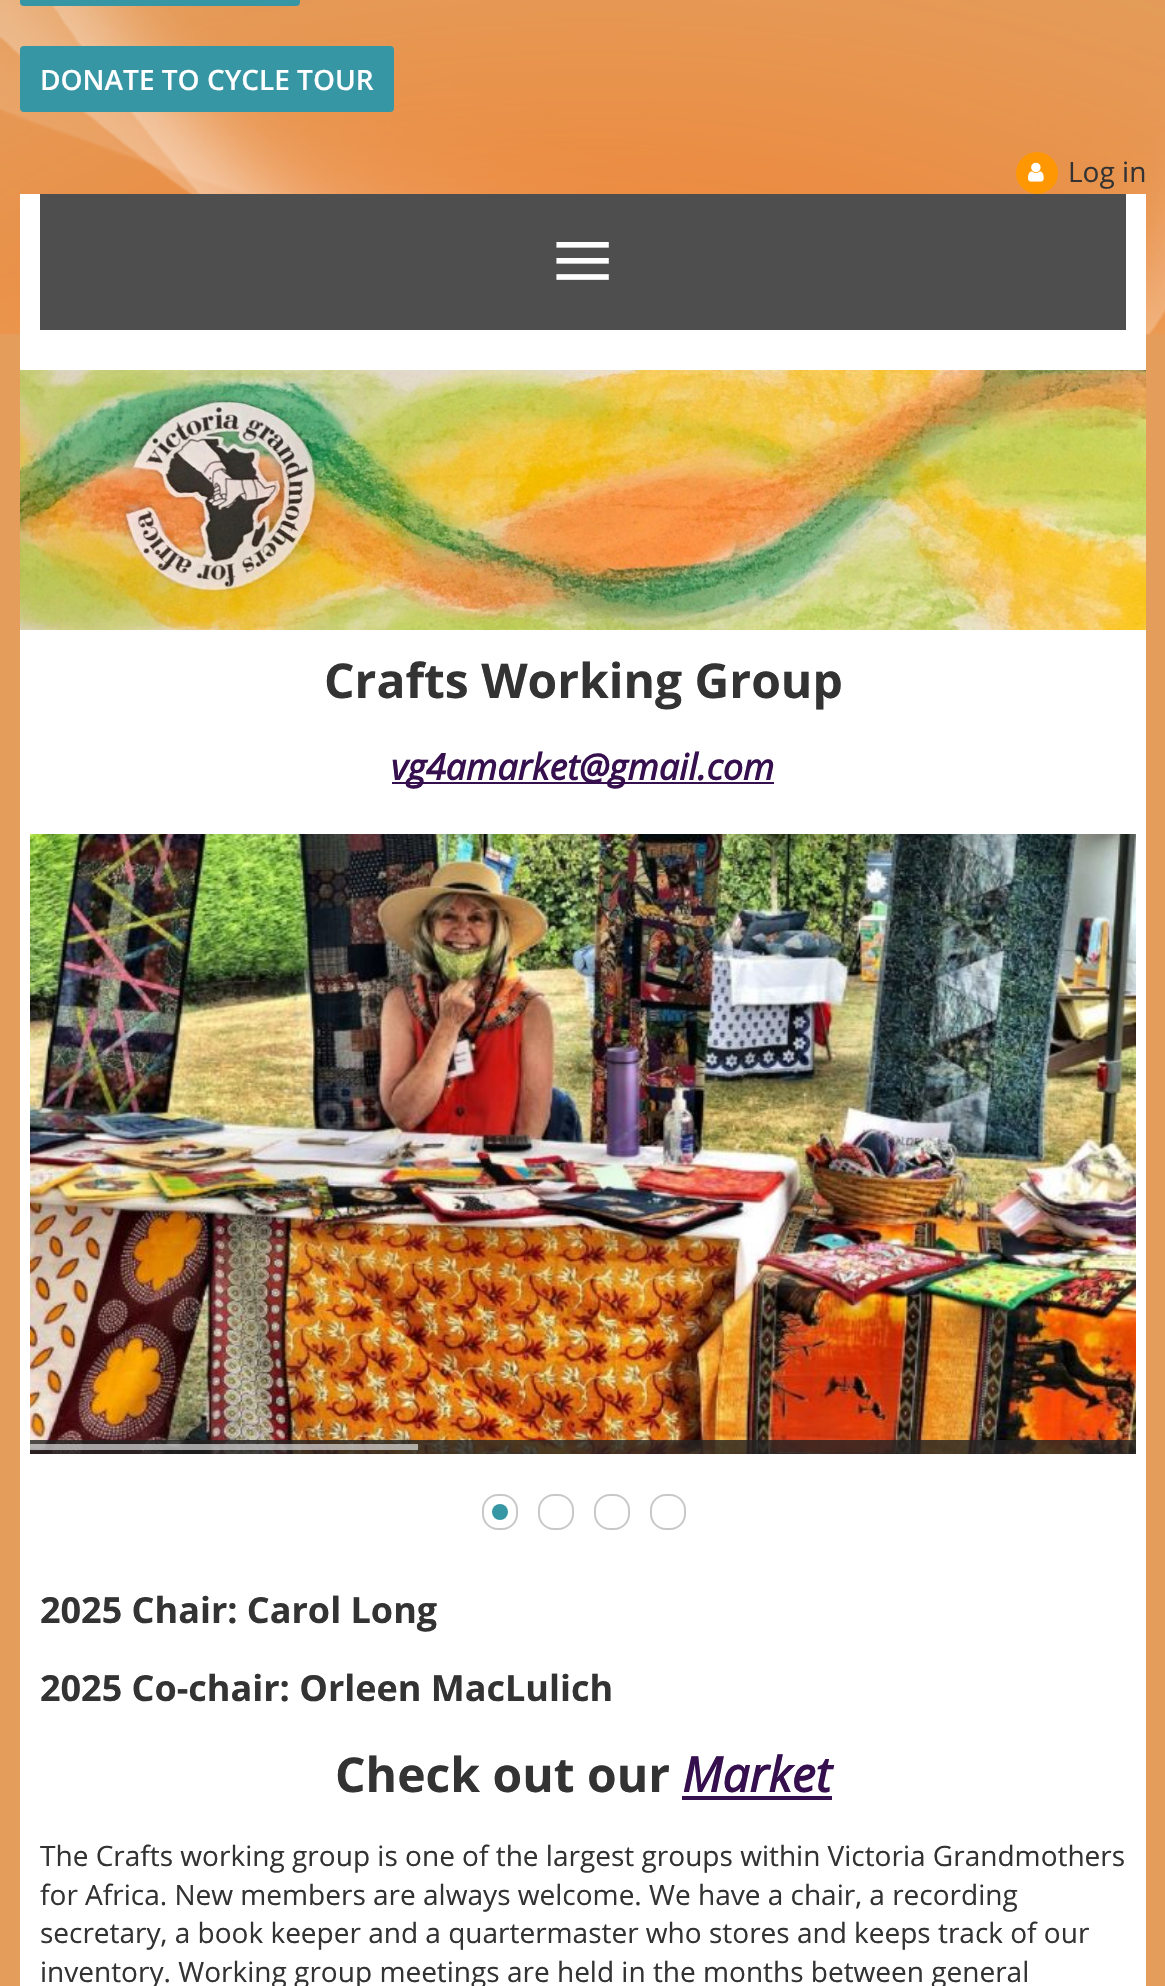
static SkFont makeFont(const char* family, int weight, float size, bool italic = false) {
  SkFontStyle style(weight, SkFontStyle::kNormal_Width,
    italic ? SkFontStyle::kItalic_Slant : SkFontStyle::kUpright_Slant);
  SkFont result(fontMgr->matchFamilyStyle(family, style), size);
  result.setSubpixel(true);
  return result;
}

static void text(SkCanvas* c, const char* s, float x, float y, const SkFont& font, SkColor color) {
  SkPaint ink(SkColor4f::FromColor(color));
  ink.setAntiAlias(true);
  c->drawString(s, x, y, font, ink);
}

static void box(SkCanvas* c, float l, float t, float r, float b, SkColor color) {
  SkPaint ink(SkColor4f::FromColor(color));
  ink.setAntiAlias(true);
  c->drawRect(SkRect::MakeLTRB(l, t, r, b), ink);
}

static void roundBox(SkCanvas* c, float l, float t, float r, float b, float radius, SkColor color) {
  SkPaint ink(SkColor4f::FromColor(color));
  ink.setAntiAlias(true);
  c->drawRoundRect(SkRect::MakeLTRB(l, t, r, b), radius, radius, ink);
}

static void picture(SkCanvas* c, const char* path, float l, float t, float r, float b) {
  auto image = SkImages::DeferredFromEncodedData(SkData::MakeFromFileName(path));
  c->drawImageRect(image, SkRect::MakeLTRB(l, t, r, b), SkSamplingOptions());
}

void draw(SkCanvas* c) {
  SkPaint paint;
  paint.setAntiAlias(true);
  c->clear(0xffe49d5b);
  picture(c, "img_01.png", 0, 0, 1165, 335);
  roundBox(c, 20, -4, 300, 6, 4, 0xff3696a4);
  roundBox(c, 20, 46, 394, 112, 4, 0xff3696a4);
  SkFont face1 = makeFont("Open Sans", 600, 28);
  text(c, "DONATE TO CYCLE TOUR", 40, 90, face1, 0xffffffff);
  paint.setColor(0xfffe9701);
  c->drawCircle(1037, 173, 19, paint);
  paint.setStyle(SkPaint::kStroke_Style);
  paint.setStrokeWidth(4);
  c->drawCircle(1037, 173, 19, paint);
  picture(c, "img_02.png", 1028, 162, 1044, 182);
  SkFont face2 = makeFont("Open Sans", 400, 28);
  text(c, "Log in", 1068, 182, face2, 0xff333333);
  box(c, 20, 194, 1146, 1986, 0xffffffff);
  box(c, 40, 194, 1126, 330, 0xff4e4e4e);
  SkFont face3 = makeFont("Liberation Serif", 400, 112);
  text(c, "≡", 551, 298, face3, 0xffffffff);
  picture(c, "img_03.png", 20, 370, 1146, 630);
  SkFont face4 = makeFont("Open Sans", 700, 48);
  text(c, "Crafts Working Group", 324, 698, face4, 0xff333333);
  box(c, 392, 782, 774, 784, 0xff360f4e);
  SkFont face5 = makeFont("Open Sans", 700, 36, true);
  text(c, "vg4amarket@gmail.com", 391, 780, face5, 0xff360f4e);
  picture(c, "img_04.png", 30, 834, 1136, 1454);
  box(c, 30, 1440, 1136, 1454, 0xcc222222);
  box(c, 30, 1444, 418, 1450, 0xa3eeeeee);
  paint.setStrokeWidth(2);
  paint.setColor(0xffc8c8c8);
  c->drawRoundRect(SkRect::MakeLTRB(483, 1495, 517, 1529), 15, 15, paint);
  paint.setStyle(SkPaint::kFill_Style);
  paint.setColor(0xff3696a4);
  c->drawCircle(500, 1512, 8, paint);
  paint.setStyle(SkPaint::kStroke_Style);
  paint.setColor(0xffc8c8c8);
  c->drawRoundRect(SkRect::MakeLTRB(539, 1495, 573, 1529), 15, 15, paint);
  c->drawRoundRect(SkRect::MakeLTRB(595, 1495, 629, 1529), 15, 15, paint);
  c->drawRoundRect(SkRect::MakeLTRB(651, 1495, 685, 1529), 15, 15, paint);
  SkFont face6 = makeFont("Open Sans", 700, 36);
  text(c, "2025 Chair: Carol Long", 40, 1623, face6, 0xff333333);
  text(c, "2025 Co-chair: Orleen MacLulich", 40, 1701, face6, 0xff333333);
  text(c, "Check out our", 335, 1792, face4, 0xff333333);
  SkFont face7 = makeFont("Open Sans", 700, 48, true);
  text(c, "Market", 682, 1792, face7, 0xff360f4e);
  box(c, 682, 1796, 832, 1800, 0xff360f4e);
  text(c, "The Crafts working group is one of the largest groups within Victoria Grandmothers", 40, 1866, face2, 0xff333333);
  text(c, "for Africa. New members are always welcome. We have a chair, a recording", 40, 1905, face2, 0xff333333);
  text(c, "secretary, a book keeper and a quartermaster who stores and keeps track of our", 40, 1943, face2, 0xff333333);
  text(c, "inventory. Working group meetings are held in the months between general", 40, 1982, face2, 0xff333333);
}
